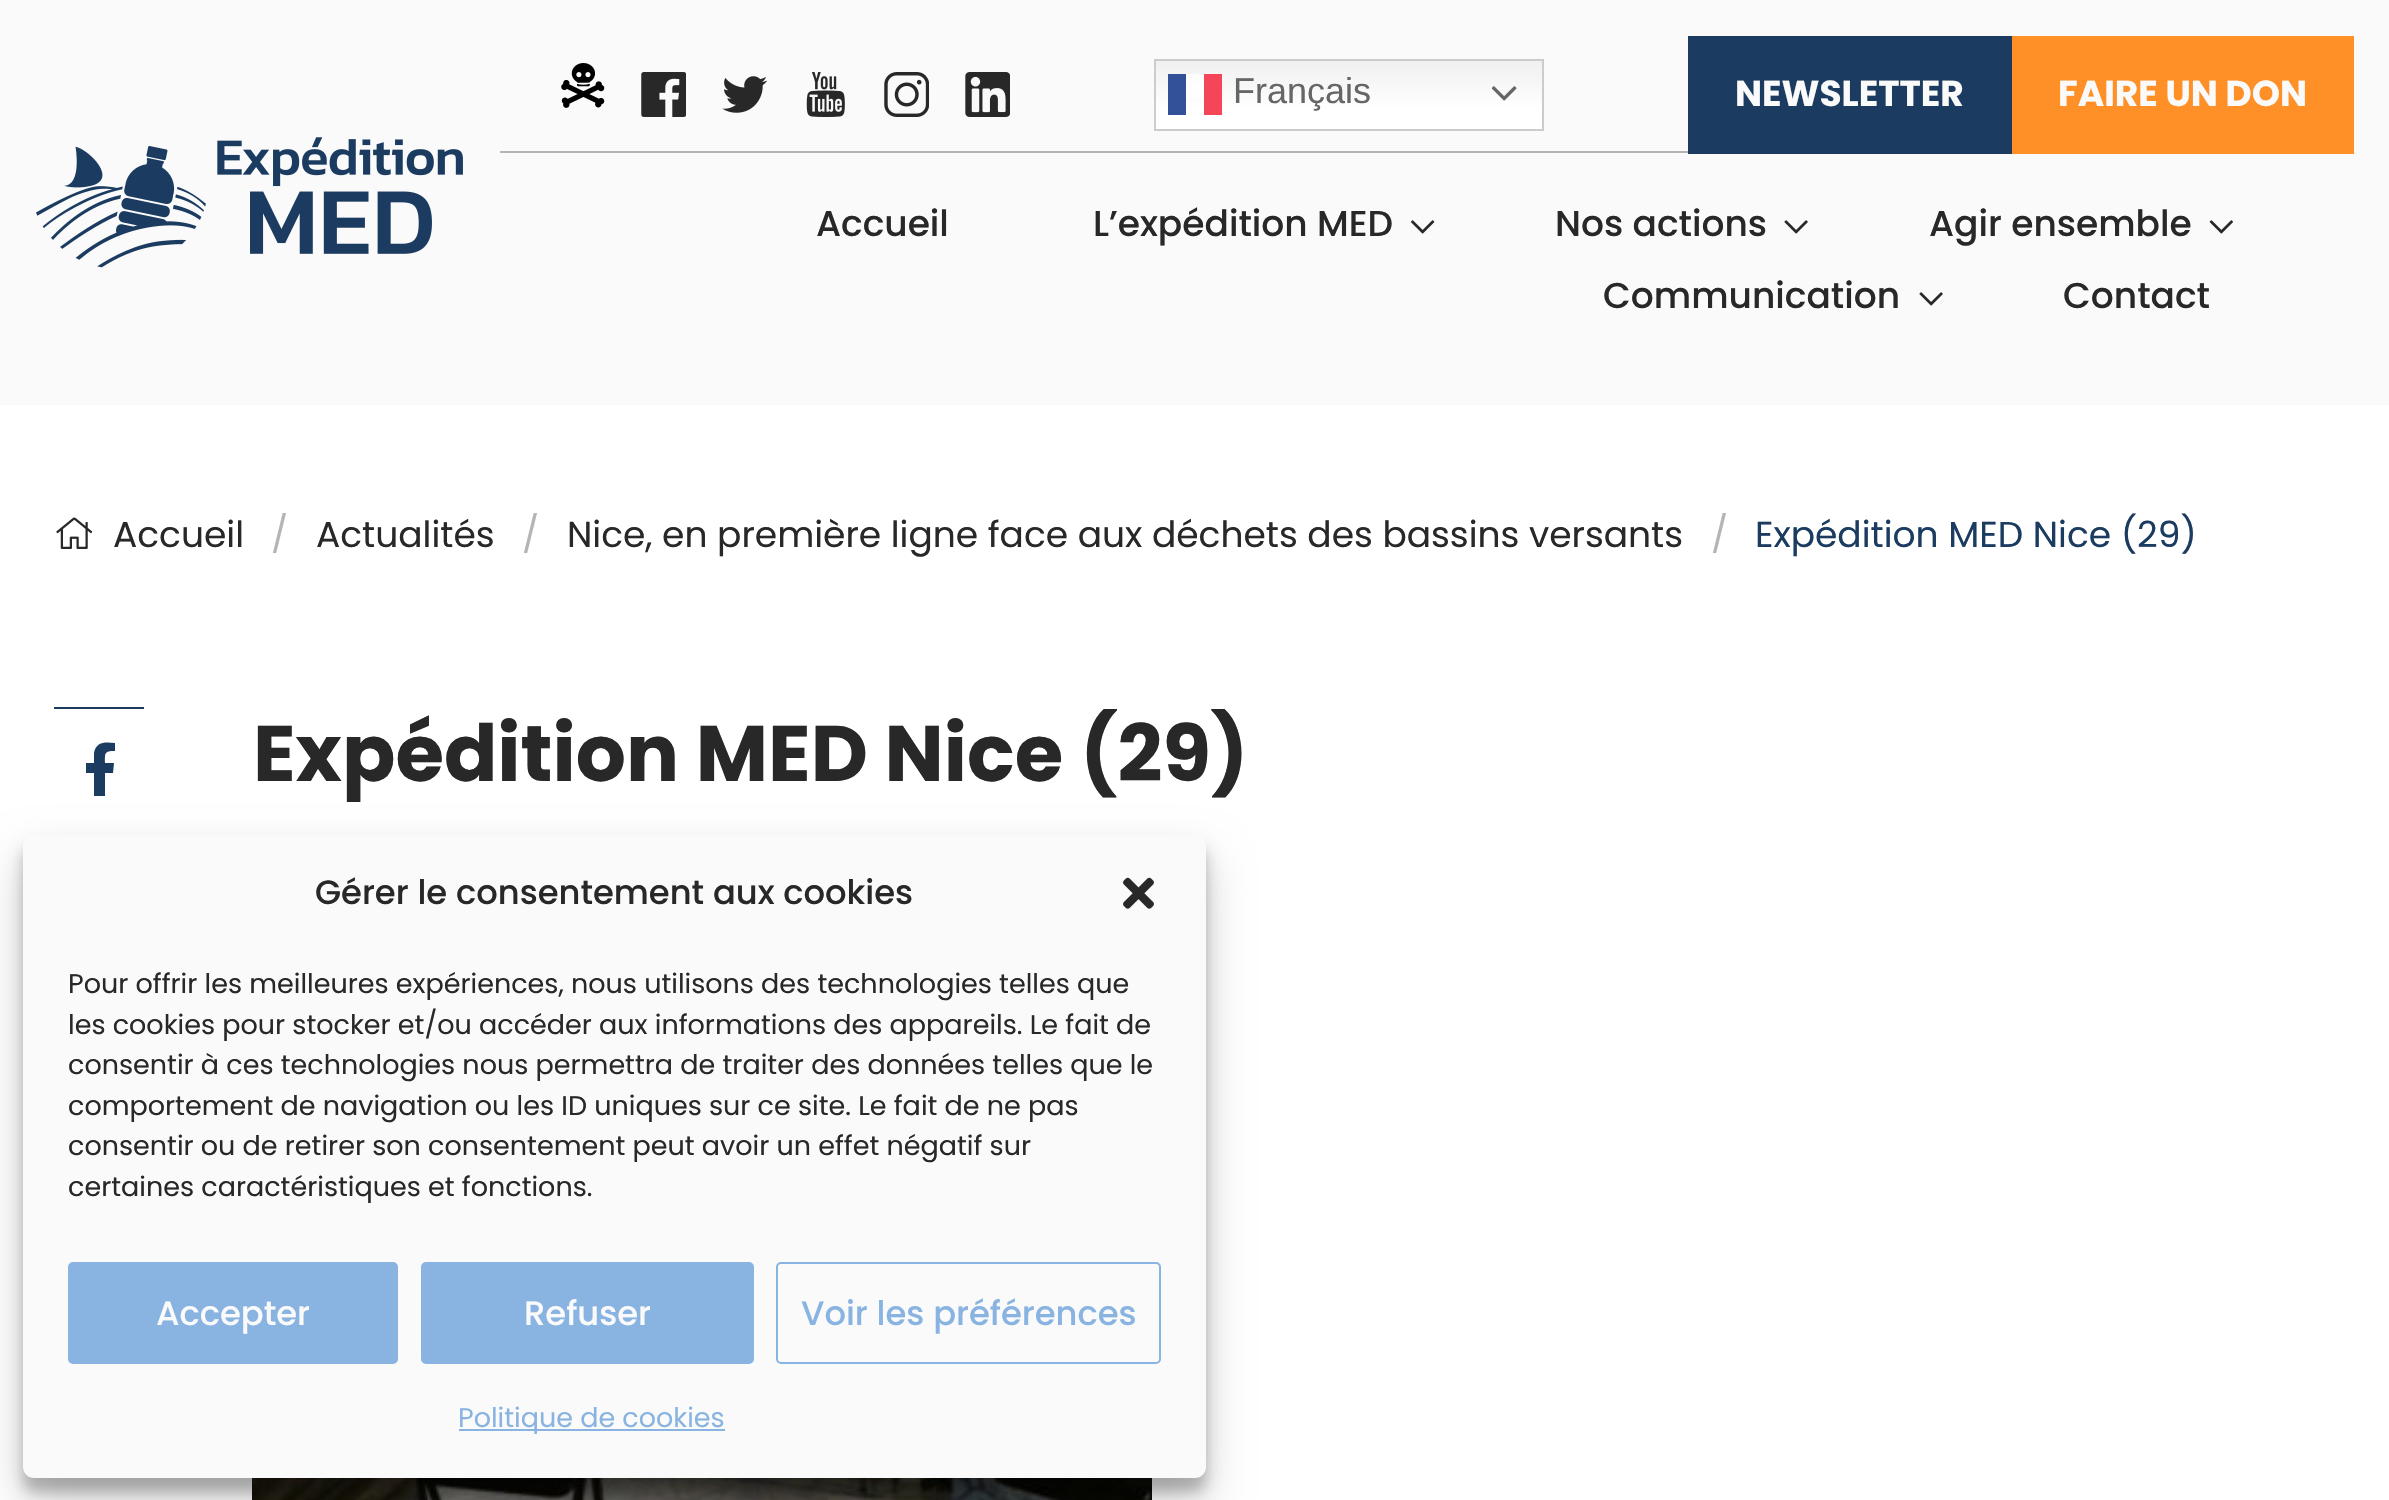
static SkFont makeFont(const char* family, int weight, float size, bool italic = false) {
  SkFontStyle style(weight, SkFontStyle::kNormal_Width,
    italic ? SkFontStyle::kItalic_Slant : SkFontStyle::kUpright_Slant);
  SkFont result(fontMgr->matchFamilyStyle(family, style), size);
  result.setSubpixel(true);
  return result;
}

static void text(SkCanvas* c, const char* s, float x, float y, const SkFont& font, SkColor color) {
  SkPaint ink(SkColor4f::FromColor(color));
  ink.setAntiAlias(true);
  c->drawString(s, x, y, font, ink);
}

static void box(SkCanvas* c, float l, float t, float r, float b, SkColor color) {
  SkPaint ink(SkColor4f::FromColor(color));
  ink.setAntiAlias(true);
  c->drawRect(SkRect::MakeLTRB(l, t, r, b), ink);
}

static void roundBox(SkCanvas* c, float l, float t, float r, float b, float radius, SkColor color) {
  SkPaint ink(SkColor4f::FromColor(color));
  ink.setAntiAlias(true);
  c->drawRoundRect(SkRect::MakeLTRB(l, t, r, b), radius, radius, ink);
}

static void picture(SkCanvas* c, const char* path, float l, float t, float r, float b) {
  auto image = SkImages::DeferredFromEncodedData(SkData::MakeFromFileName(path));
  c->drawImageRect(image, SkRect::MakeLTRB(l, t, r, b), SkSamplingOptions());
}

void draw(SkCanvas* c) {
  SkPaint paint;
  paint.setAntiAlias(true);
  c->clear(0xffffffff);
  box(c, 0, 0, 2389, 405, 0xfffafafa);
  picture(c, "img_01.png", 36, 137, 463, 268);
  box(c, 500, 151, 1688, 153, 0xffb5b5b5);
  picture(c, "img_02.png", 561, 63, 605, 108);
  picture(c, "img_03.png", 641, 72, 686, 117);
  picture(c, "img_04.png", 722, 76, 767, 113);
  picture(c, "img_05.png", 806, 72, 845, 117);
  picture(c, "img_06.png", 884, 72, 929, 117);
  picture(c, "img_07.png", 965, 72, 1010, 117);
  {
    const SkColor colors[] = {0xffefefef, 0xffffffff};
    const float stops[] = {0, 0.7f};
    const SkPoint ends[] = {{1349, 58}, {1349, 131}};
    paint.setShader(SkGradientShader::MakeLinear(ends, colors, stops, 2, SkTileMode::kClamp));
    paint.setAlpha(255);
  }
  c->drawRect(SkRect::MakeLTRB(1156, 61, 1542, 129), paint);
  {
    const SkColor colors[] = {0xfffcfcfc, 0xffffffff};
    const float stops[] = {0, 0.7f};
    const SkPoint ends[] = {{1349, 58}, {1349, 131}};
    paint.setShader(SkGradientShader::MakeLinear(ends, colors, stops, 2, SkTileMode::kClamp));
    paint.setAlpha(255);
  }
  c->drawRect(SkRect::MakeLTRB(1186, 74, 1204, 98), paint);
  paint.setStyle(SkPaint::kStroke_Style);
  paint.setStrokeWidth(2);
  paint.setShader(nullptr);
  paint.setColor(0xffcccccc);
  c->drawRect(SkRect::MakeLTRB(1155, 60, 1543, 130), paint);
  box(c, 1168, 74, 1186, 115, 0xff335198);
  box(c, 1204, 74, 1222, 115, 0xfff54659);
  SkFont face1 = makeFont("Liberation Sans", 400, 36);
  text(c, "Français", 1233, 103, face1, 0xff666666);
  picture(c, "img_08.png", 1492, 86, 1517, 101);
  box(c, 1688, 36, 2012, 154, 0xff1b3c60);
  SkFont face2 = makeFont("Poppins", 700, 36);
  text(c, "NEWSLETTER", 1735, 106, face2, 0xfffafafa);
  box(c, 2012, 36, 2354, 154, 0xffff9027);
  text(c, "FAIRE UN DON", 2058, 106, face2, 0xfffafafa);
  SkFont face3 = makeFont("Poppins", 500, 36);
  text(c, "Accueil", 816, 236, face3, 0xff282828);
  text(c, "L’expédition MED", 1093, 236, face3, 0xff282828);
  picture(c, "img_09.png", 1411, 220, 1435, 234);
  text(c, "Nos actions", 1555, 236, face3, 0xff282828);
  picture(c, "img_10.png", 1784, 220, 1808, 234);
  text(c, "Agir ensemble", 1929, 236, face3, 0xff282828);
  picture(c, "img_11.png", 2209, 220, 2233, 234);
  text(c, "Communication", 1603, 308, face3, 0xff282828);
  picture(c, "img_10.png", 1919, 292, 1943, 306);
  text(c, "Contact", 2063, 308, face3, 0xff282828);
  picture(c, "img_12.png", 56, 517, 93, 549);
  SkFont face4 = makeFont("Poppins", 400, 36);
  text(c, "Accueil", 113, 547, face4, 0xff282828);
  text(c, "/", 271, 547, face4, 0xffb5b5b5);
  text(c, "Actualités", 316, 547, face4, 0xff282828);
  text(c, "/", 522, 547, face4, 0xffb5b5b5);
  text(c, "Nice, en première ligne face aux déchets des bassins versants", 567, 547, face4, 0xff282828);
  text(c, "/", 1711, 547, face4, 0xffb5b5b5);
  text(c, "Expédition MED Nice (29)", 1755, 547, face4, 0xff1b3c60);
  box(c, 54, 707, 144, 709, 0xff1b3c60);
  paint.setStyle(SkPaint::kFill_Style);
  paint.setColor(0xff1b3c60);
  c->drawPath(SkPathBuilder().moveTo(113, 773).lineTo(105, 773).lineTo(105, 796).lineTo(94, 796).lineTo(94, 773).lineTo(86, 773).lineTo(86, 763).lineTo(94, 763).lineTo(94, 753).cubicTo(96, 741, 106, 742, 115, 743).lineTo(115, 751).cubicTo(104, 751, 105, 753, 105, 763).lineTo(114, 763).close().detach(), paint);
  SkFont face5 = makeFont("Poppins", 700, 78.75f);
  text(c, "Expédition MED Nice (29)", 253, 781, face5, 0xff282828);
  picture(c, "img_13.png", 252, 1478, 1152, 1500);
  paint.setColor(0x3b000000);
  paint.setMaskFilter(SkMaskFilter::MakeBlur(kNormal_SkBlurStyle, 7));
  c->drawRoundRect(SkRect::MakeLTRB(23, 848, 1206, 1492), 11, 11, paint);
  paint.setMaskFilter(nullptr);
  paint.setColor(0x30000000);
  paint.setMaskFilter(SkMaskFilter::MakeBlur(kNormal_SkBlurStyle, 22.5f));
  c->drawRoundRect(SkRect::MakeLTRB(23, 857, 1206, 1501), 11, 11, paint);
  paint.setMaskFilter(nullptr);
  roundBox(c, 23, 835, 1206, 1478, 11, 0xfffafafa);
  SkFont face6 = makeFont("Poppins", 500, 33.75f);
  text(c, "Gérer le consentement aux cookies", 315, 904, face6, 0xff282828);
  picture(c, "img_14.png", 1123, 877, 1154, 909);
  SkFont face7 = makeFont("Poppins", 400, 27);
  text(c, "Pour offrir les meilleures expériences, nous utilisons des technologies telles que", 68, 993, face7, 0xff282828);
  text(c, "les cookies pour stocker et/ou accéder aux informations des appareils. Le fait de", 68, 1034, face7, 0xff282828);
  text(c, "consentir à ces technologies nous permettra de traiter des données telles que le", 68, 1074, face7, 0xff282828);
  text(c, "comportement de navigation ou les ID uniques sur ce site. Le fait de ne pas", 68, 1115, face7, 0xff282828);
  text(c, "consentir ou de retirer son consentement peut avoir un effet négatif sur", 68, 1155, face7, 0xff282828);
  text(c, "certaines caractéristiques et fonctions.", 68, 1196, face7, 0xff282828);
  paint.setColor(0xff89b4e1);
  c->drawRoundRect(SkRect::MakeLTRB(69, 1263, 397, 1363), 4, 4, paint);
  paint.setStyle(SkPaint::kStroke_Style);
  c->drawRoundRect(SkRect::MakeLTRB(69, 1263, 397, 1363), 4, 4, paint);
  text(c, "Accepter", 156, 1325, face6, 0xfffafafa);
  paint.setStyle(SkPaint::kFill_Style);
  c->drawRoundRect(SkRect::MakeLTRB(422, 1263, 753, 1363), 4, 4, paint);
  paint.setStyle(SkPaint::kStroke_Style);
  c->drawRoundRect(SkRect::MakeLTRB(422, 1263, 753, 1363), 4, 4, paint);
  text(c, "Refuser", 524, 1325, face6, 0xfffafafa);
  c->drawRoundRect(SkRect::MakeLTRB(777, 1263, 1160, 1363), 4, 4, paint);
  text(c, "Voir les préférences", 801, 1325, face6, 0xff89b4e1);
  box(c, 459, 1429, 725, 1431, 0xff89b4e1);
  text(c, "Politique de cookies", 458, 1427, face7, 0xff89b4e1);
}
